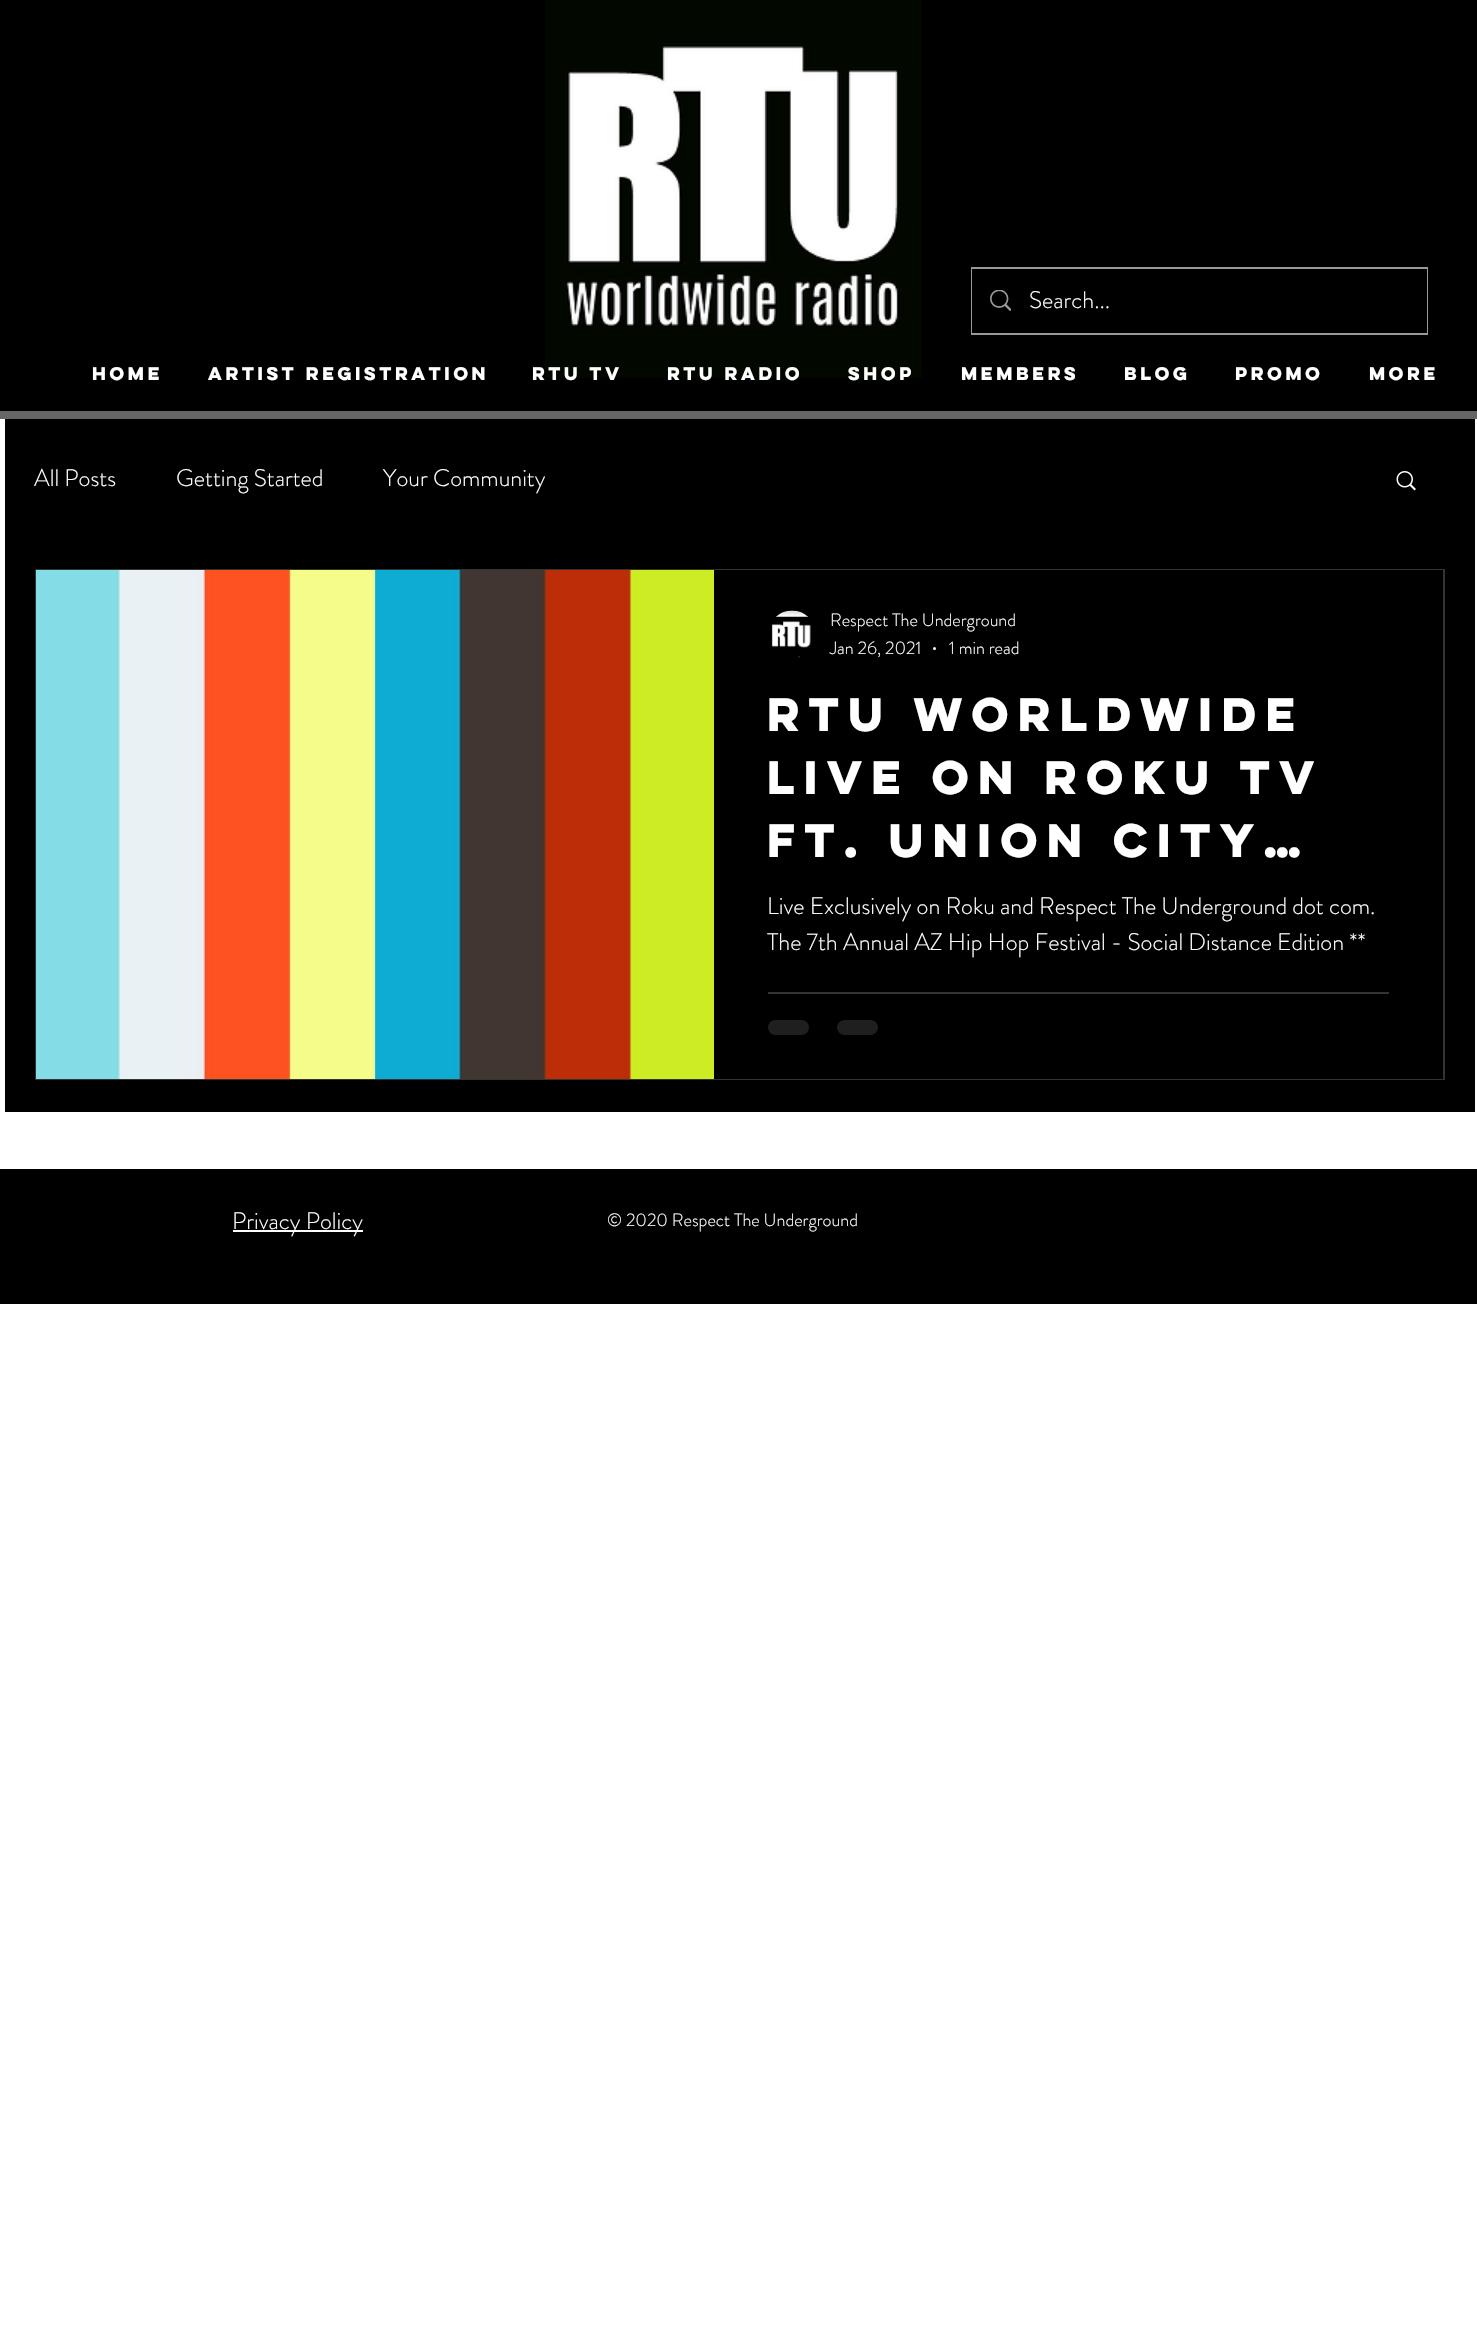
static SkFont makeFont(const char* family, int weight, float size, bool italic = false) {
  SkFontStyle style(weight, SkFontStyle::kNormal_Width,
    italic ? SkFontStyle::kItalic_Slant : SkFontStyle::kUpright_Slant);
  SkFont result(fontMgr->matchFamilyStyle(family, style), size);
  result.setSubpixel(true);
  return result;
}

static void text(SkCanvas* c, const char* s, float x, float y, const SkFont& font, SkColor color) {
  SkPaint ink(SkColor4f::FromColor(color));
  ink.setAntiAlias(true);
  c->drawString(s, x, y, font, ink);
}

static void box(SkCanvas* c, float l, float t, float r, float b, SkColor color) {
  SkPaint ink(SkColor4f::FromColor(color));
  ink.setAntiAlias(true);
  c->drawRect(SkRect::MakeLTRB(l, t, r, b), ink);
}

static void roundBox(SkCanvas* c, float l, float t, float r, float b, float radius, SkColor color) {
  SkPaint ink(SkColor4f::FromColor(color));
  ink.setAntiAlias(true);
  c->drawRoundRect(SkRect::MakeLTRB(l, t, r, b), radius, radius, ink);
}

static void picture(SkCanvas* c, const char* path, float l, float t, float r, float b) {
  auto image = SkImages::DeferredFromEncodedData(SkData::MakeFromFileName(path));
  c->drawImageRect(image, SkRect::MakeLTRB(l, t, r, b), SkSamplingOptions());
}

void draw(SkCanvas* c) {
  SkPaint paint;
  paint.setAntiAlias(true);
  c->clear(0xffffffff);
  box(c, 0, 0, 1477, 411, 0xff000000);
  box(c, 0, 411, 1477, 419, 0xff666666);
  picture(c, "img_01.png", 545, 0, 922, 378);
  paint.setStyle(SkPaint::kStroke_Style);
  paint.setStrokeWidth(2);
  paint.setColor(0xff999999);
  c->drawRect(SkRect::MakeLTRB(972, 268, 1427, 334), paint);
  box(c, 972, 269, 1427, 333, 0xff000000);
  picture(c, "img_02.png", 990, 290, 1011, 311);
  SkFont face1 = makeFont("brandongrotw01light", 300, 24);
  text(c, "Search...", 1029, 308, face1, 0xffffffff);
  SkFont face2 = makeFont("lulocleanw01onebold", 700, 16.5f);
  text(c, "HOME", 92, 380, face2, 0xffffffff);
  text(c, "ARTIST REGISTRATION", 208, 380, face2, 0xffffffff);
  text(c, "RTU TV", 532, 380, face2, 0xffffffff);
  text(c, "RTU RADIO", 667, 380, face2, 0xffffffff);
  text(c, "SHOP", 848, 380, face2, 0xffffffff);
  text(c, "Members", 961, 380, face2, 0xffffffff);
  text(c, "Blog", 1124, 380, face2, 0xffffffff);
  text(c, "PROMO", 1235, 380, face2, 0xffffffff);
  text(c, "More", 1369, 380, face2, 0xffffffff);
  box(c, 5, 419, 1475, 1112, 0xff000000);
  text(c, "All Posts", 34, 486, face1, 0xffffffff);
  text(c, "Getting Started", 176, 486, face1, 0xffffffff);
  text(c, "Your Community", 383, 486, face1, 0xffffffff);
  picture(c, "img_03.png", 1396, 471, 1416, 491);
  paint.setColor(0xff333333);
  c->drawRect(SkRect::MakeLTRB(36, 570, 1444, 1079), paint);
  picture(c, "img_04.png", 36, 570, 714, 1079);
  box(c, 714, 570, 1443, 1079, 0xff000000);
  picture(c, "img_05.png", 771, 610, 811, 658);
  SkFont face3 = makeFont("brandongrotw01light", 300, 18);
  text(c, "Respect The Underground", 830, 626, face3, 0xffffffff);
  text(c, "Jan 26, 2021", 830, 654, face3, 0xffffffff);
  paint.setStyle(SkPaint::kFill_Style);
  paint.setColor(0xffffffff);
  c->drawCircle(934.5f, 648.5f, 1.5f, paint);
  text(c, "1 min read", 949, 654, face3, 0xffffffff);
  SkFont face4 = makeFont("lulocleanw01onebold", 700, 42);
  text(c, "RTU WORLDWIDE", 767, 731, face4, 0xffffffff);
  text(c, "LIVE on ROKU TV", 767, 794, face4, 0xffffffff);
  text(c, "Ft. Union City…", 767, 857, face4, 0xffffffff);
  text(c, "Live Exclusively on Roku and Respect The Underground dot com.", 767, 914, face1, 0xffffffff);
  text(c, "The 7th Annual AZ Hip Hop Festival - Social Distance Edition **", 767, 950, face1, 0xffffffff);
  box(c, 768, 992, 1389, 994, 0xff333333);
  roundBox(c, 768, 1020, 809, 1035, 7.5f, 0xff1f1f1f);
  roundBox(c, 837, 1020, 878, 1035, 7.5f, 0xff1f1f1f);
  box(c, 0, 1169, 1477, 1304, 0xff000000);
  box(c, 233, 1230, 363, 1232, 0xffffffff);
  text(c, "Privacy Policy", 232, 1229, face1, 0xffffffff);
  text(c, "© 2020 Respect The Underground", 607, 1226, face3, 0xffffffff);
}
